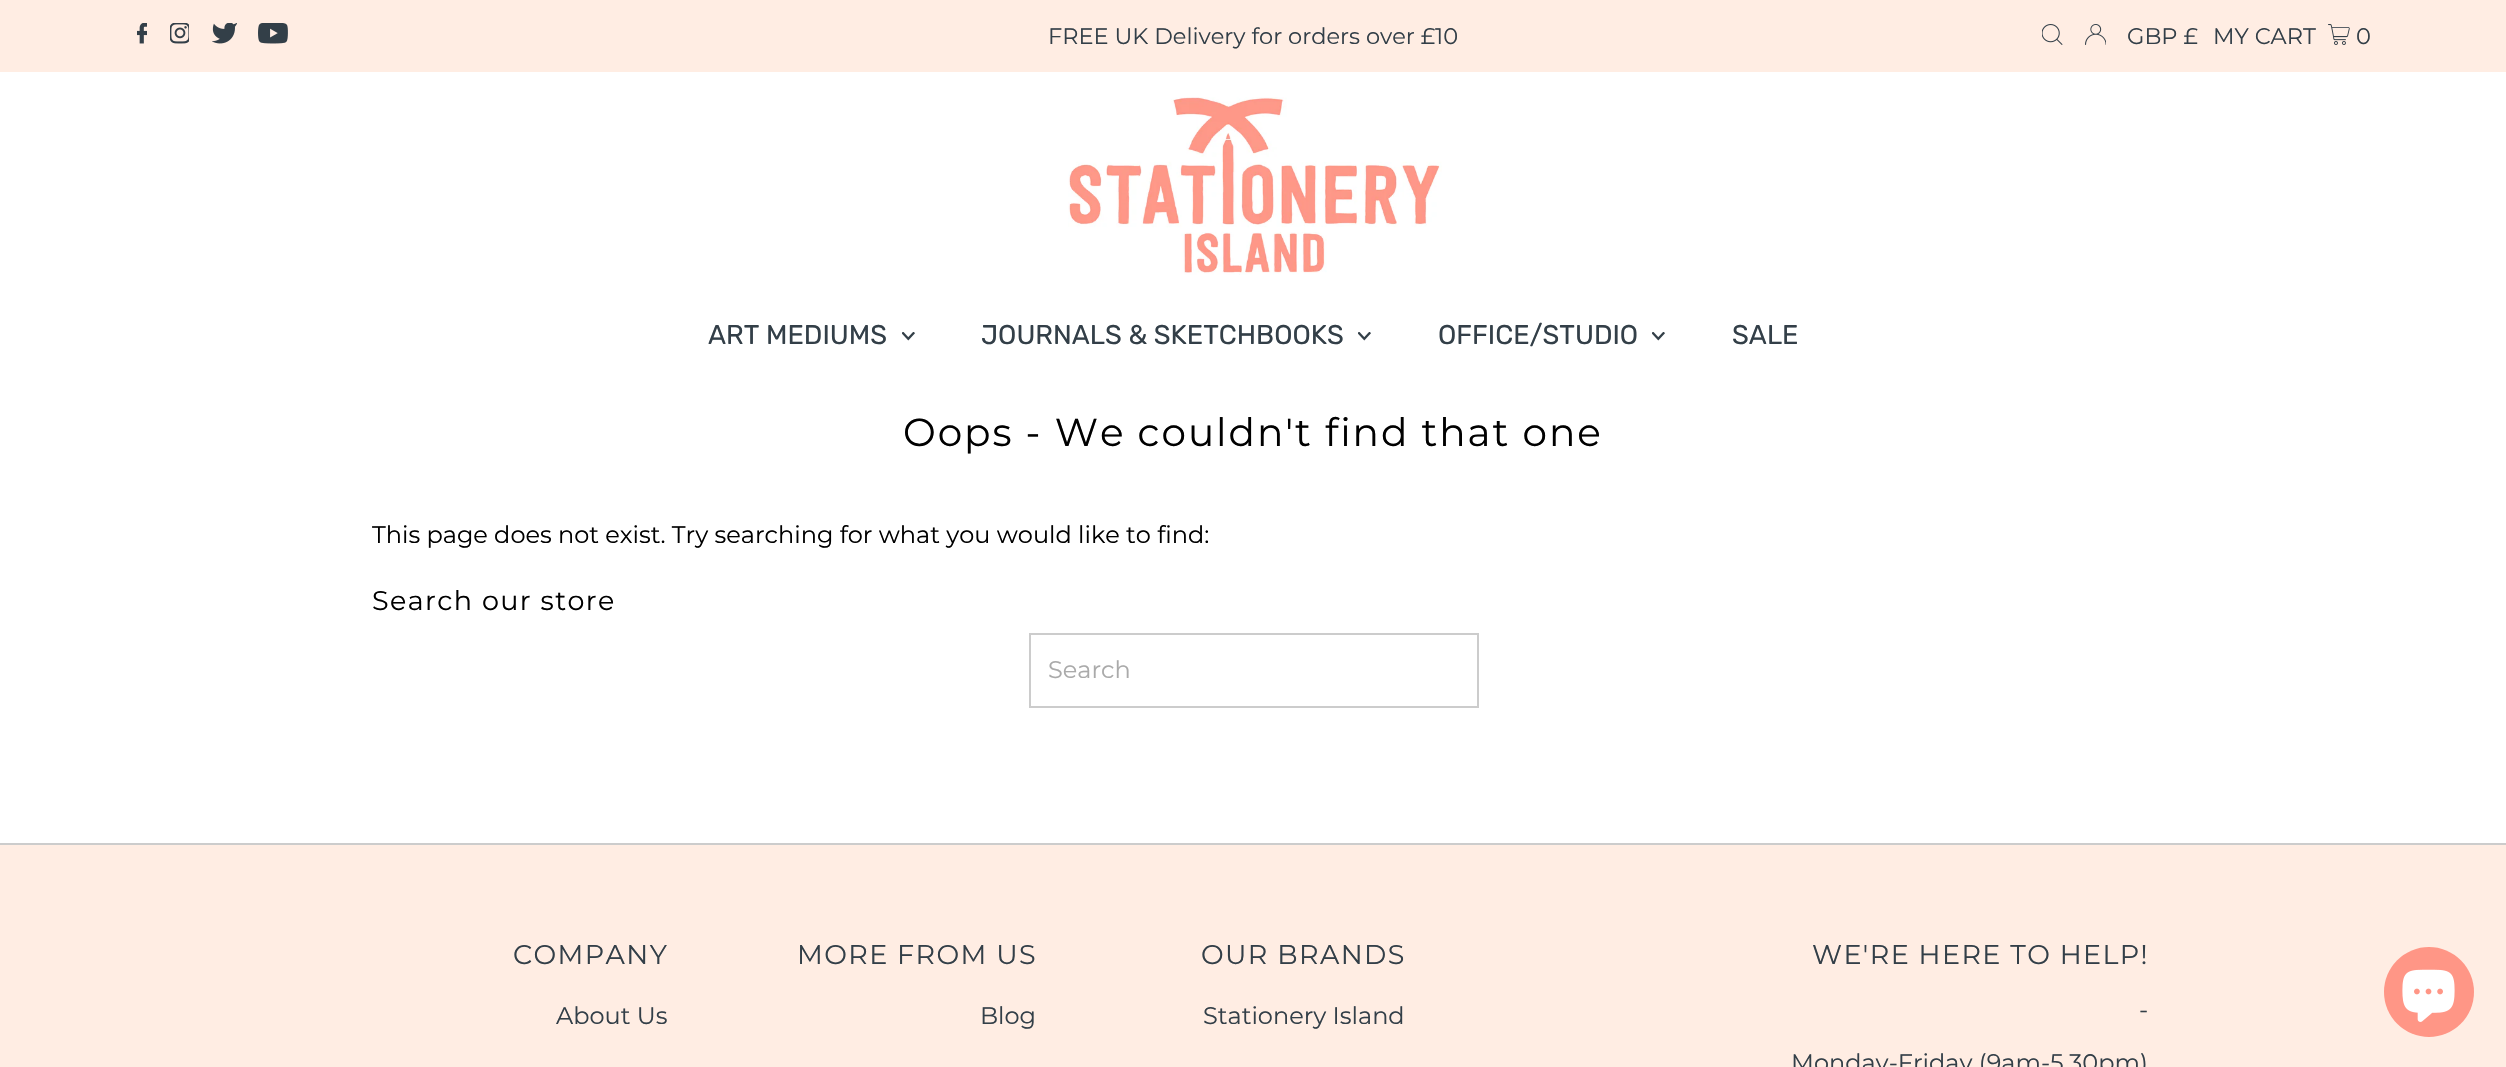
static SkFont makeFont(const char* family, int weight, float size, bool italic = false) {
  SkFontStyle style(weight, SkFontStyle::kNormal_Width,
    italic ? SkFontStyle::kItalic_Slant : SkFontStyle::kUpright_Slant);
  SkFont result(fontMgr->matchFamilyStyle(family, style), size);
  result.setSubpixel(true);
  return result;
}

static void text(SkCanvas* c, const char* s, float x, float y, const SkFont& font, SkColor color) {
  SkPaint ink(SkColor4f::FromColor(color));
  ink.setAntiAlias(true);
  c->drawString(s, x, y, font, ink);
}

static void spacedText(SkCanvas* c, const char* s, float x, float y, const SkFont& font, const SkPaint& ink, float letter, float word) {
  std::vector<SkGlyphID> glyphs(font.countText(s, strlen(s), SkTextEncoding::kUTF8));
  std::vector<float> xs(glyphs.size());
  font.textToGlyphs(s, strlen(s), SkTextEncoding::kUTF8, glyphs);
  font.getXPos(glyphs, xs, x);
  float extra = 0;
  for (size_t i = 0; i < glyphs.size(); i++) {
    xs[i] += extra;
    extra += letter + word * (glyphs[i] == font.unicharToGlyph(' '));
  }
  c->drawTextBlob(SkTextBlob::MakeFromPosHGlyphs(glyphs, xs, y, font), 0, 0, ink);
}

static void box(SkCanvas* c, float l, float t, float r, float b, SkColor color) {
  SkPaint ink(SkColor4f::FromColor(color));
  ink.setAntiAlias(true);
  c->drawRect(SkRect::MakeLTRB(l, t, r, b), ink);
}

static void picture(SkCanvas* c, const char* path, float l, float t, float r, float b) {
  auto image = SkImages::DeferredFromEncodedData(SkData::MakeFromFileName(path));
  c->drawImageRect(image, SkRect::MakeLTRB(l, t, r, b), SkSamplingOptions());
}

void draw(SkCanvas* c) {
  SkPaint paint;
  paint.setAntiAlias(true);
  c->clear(0xffffffff);
  box(c, 0, 0, 2506, 72, 0xffffede3);
  picture(c, "img_01.png", 137, 23, 147, 44);
  picture(c, "img_02.png", 170, 23, 189, 44);
  picture(c, "img_03.png", 212, 23, 237, 44);
  picture(c, "img_04.png", 258, 23, 288, 44);
  SkFont face1 = makeFont("Montserrat", 400, 22.5f);
  text(c, "FREE UK Delivery for orders over £10", 1048, 44, face1, 0xff333f48);
  picture(c, "img_05.png", 2042, 24, 2063, 45);
  picture(c, "img_06.png", 2085, 24, 2106, 45);
  text(c, "GBP £", 2127, 44, face1, 0xff333f48);
  text(c, "MY CART", 2213, 44, face1, 0xff333f48);
  picture(c, "img_07.png", 2328, 24, 2350, 45);
  text(c, "0", 2356, 44, face1, 0xff333f48);
  picture(c, "img_08.png", 1068, 97, 1442, 275);
  SkFont face2 = makeFont("Rubik", 400, 27);
  text(c, "ART MEDIUMS", 708, 344, face2, 0xff333f48);
  picture(c, "img_09.png", 902, 332, 915, 341);
  text(c, "JOURNALS & SKETCHBOOKS", 981, 344, face2, 0xff333f48);
  picture(c, "img_09.png", 1358, 332, 1371, 341);
  text(c, "OFFICE/STUDIO", 1438, 344, face2, 0xff333f48);
  picture(c, "img_09.png", 1652, 332, 1665, 341);
  text(c, "SALE", 1732, 344, face2, 0xff333f48);
  SkFont face3 = makeFont("Montserrat", 400, 39);
  paint.setColor(0xff000000);
  spacedText(c, "Oops - We couldn't find that one", 903, 446, face3, paint, 1.95f, 0);
  SkFont face4 = makeFont("Montserrat", 400, 24);
  text(c, "This page does not exist. Try searching for what you would like to find:", 372, 543, face4, 0xff000000);
  SkFont face5 = makeFont("Montserrat", 400, 27);
  spacedText(c, "Search our store", 372, 610, face5, paint, 1.4f, 0);
  paint.setStyle(SkPaint::kStroke_Style);
  paint.setStrokeWidth(2);
  paint.setColor(0xffcccccc);
  c->drawRect(SkRect::MakeLTRB(1030, 634, 1478, 707), paint);
  text(c, "Search", 1048, 678, face4, 0xffaaaaaa);
  box(c, 0, 845, 2506, 1067, 0xffffede3);
  box(c, 0, 843, 2506, 845, 0xffcccccc);
  paint.setStyle(SkPaint::kFill_Style);
  paint.setColor(0xff333f48);
  spacedText(c, "COMPANY", 513, 964, face5, paint, 1.4f, 0);
  text(c, "About Us", 556, 1024, face4, 0xff333f48);
  spacedText(c, "MORE FROM US", 797, 964, face5, paint, 1.4f, 0);
  text(c, "Blog", 980, 1024, face4, 0xff333f48);
  spacedText(c, "OUR BRANDS", 1201, 964, face5, paint, 1.4f, 0);
  text(c, "Stationery Island", 1203, 1024, face4, 0xff333f48);
  spacedText(c, "WE'RE HERE TO HELP!", 1812, 964, face5, paint, 1.4f, 0);
  text(c, "-", 2139, 1018, face4, 0xff333f48);
  text(c, "Monday-Friday (9am-5.30pm)", 1791, 1071, face4, 0xff333f48);
  paint.setColor(0xffff9686);
  c->drawCircle(2429, 992, 45, paint);
  picture(c, "img_10.png", 2402, 969, 2455, 1022);
}
